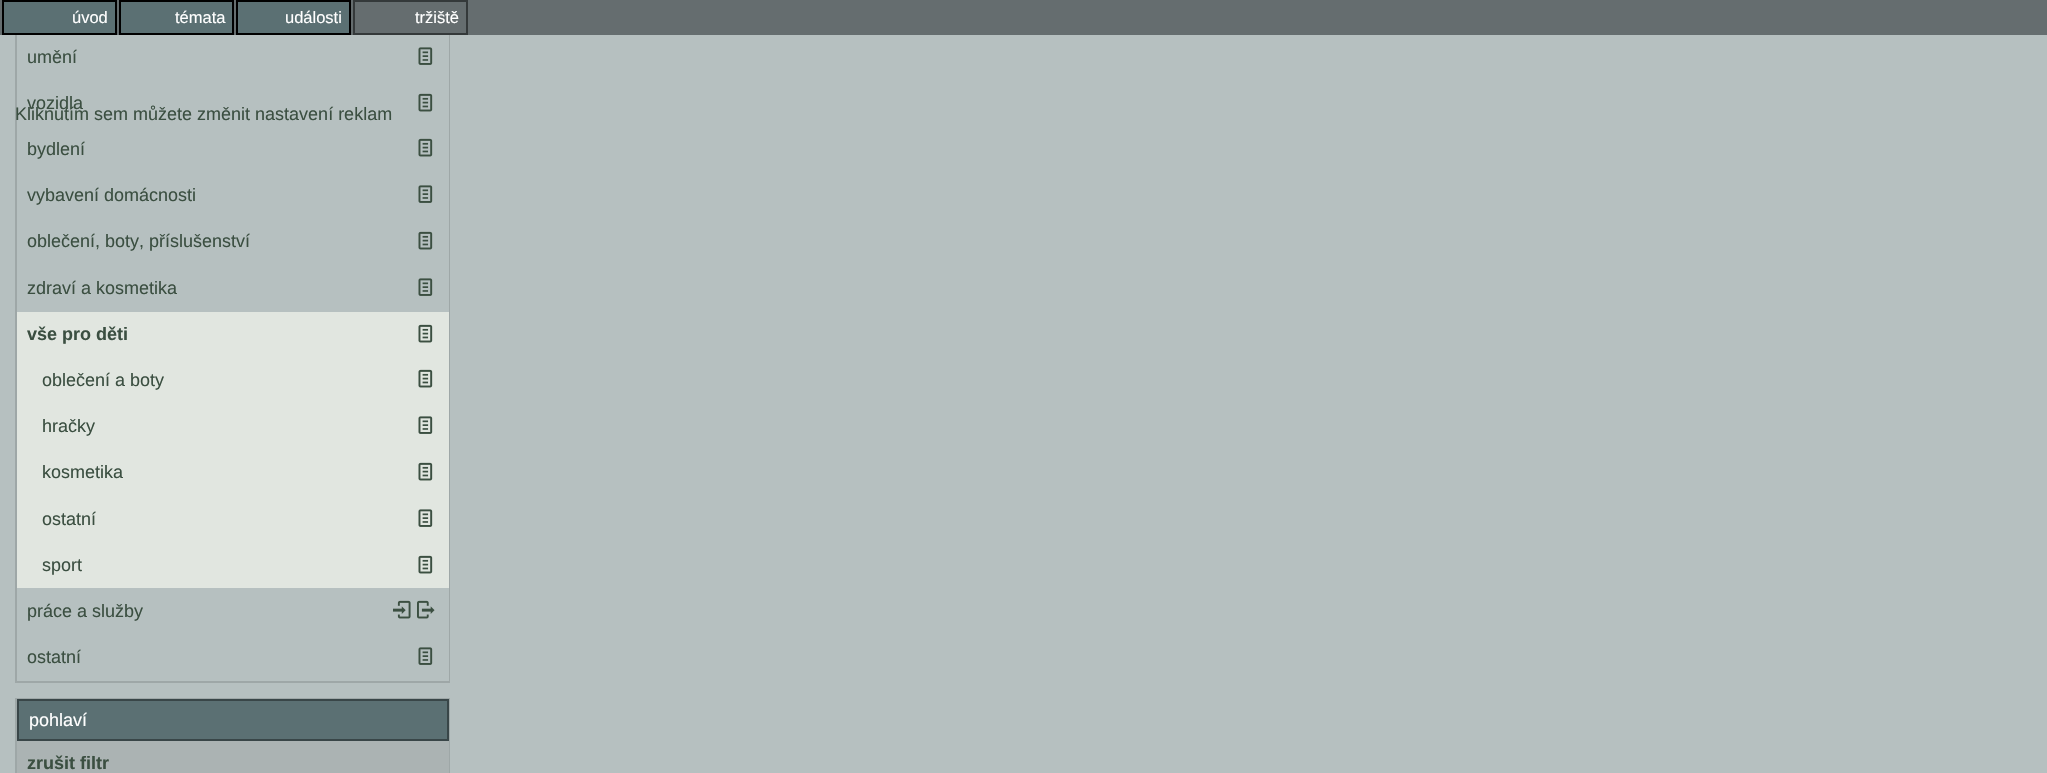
static SkFont makeFont(const char* family, int weight, float size, bool italic = false) {
  SkFontStyle style(weight, SkFontStyle::kNormal_Width,
    italic ? SkFontStyle::kItalic_Slant : SkFontStyle::kUpright_Slant);
  SkFont result(fontMgr->matchFamilyStyle(family, style), size);
  result.setSubpixel(true);
  return result;
}

static void text(SkCanvas* c, const char* s, float x, float y, const SkFont& font, SkColor color) {
  SkPaint ink(SkColor4f::FromColor(color));
  ink.setAntiAlias(true);
  c->drawString(s, x, y, font, ink);
}

static void box(SkCanvas* c, float l, float t, float r, float b, SkColor color) {
  SkPaint ink(SkColor4f::FromColor(color));
  ink.setAntiAlias(true);
  c->drawRect(SkRect::MakeLTRB(l, t, r, b), ink);
}

static void picture(SkCanvas* c, const char* path, float l, float t, float r, float b) {
  auto image = SkImages::DeferredFromEncodedData(SkData::MakeFromFileName(path));
  c->drawImageRect(image, SkRect::MakeLTRB(l, t, r, b), SkSamplingOptions());
}

void draw(SkCanvas* c) {
  SkPaint paint;
  paint.setAntiAlias(true);
  c->clear(0xffb6c0c0);
  paint.setStyle(SkPaint::kStroke_Style);
  paint.setStrokeWidth(2);
  paint.setColor(0xff9ea7a7);
  c->drawRect(SkRect::MakeLTRB(16, -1, 449, 682), paint);
  box(c, 0, 0, 2047, 35, 0xff656d6f);
  paint.setStyle(SkPaint::kFill_Style);
  paint.setColor(0xff5b7073);
  c->drawRect(SkRect::MakeLTRB(3, 1, 116, 34), paint);
  paint.setStyle(SkPaint::kStroke_Style);
  paint.setColor(0xff000000);
  c->drawRect(SkRect::MakeLTRB(3, 1, 116, 34), paint);
  SkFont face1 = makeFont("Liberation Sans", 400, 16.5f);
  text(c, "úvod", 72, 23, face1, 0xffffffff);
  paint.setStyle(SkPaint::kFill_Style);
  paint.setColor(0xff5b7073);
  c->drawRect(SkRect::MakeLTRB(120, 1, 233, 34), paint);
  paint.setStyle(SkPaint::kStroke_Style);
  paint.setColor(0xff000000);
  c->drawRect(SkRect::MakeLTRB(120, 1, 233, 34), paint);
  text(c, "témata", 175, 23, face1, 0xffffffff);
  paint.setStyle(SkPaint::kFill_Style);
  paint.setColor(0xff5b7073);
  c->drawRect(SkRect::MakeLTRB(237, 1, 350, 34), paint);
  paint.setStyle(SkPaint::kStroke_Style);
  paint.setColor(0xff000000);
  c->drawRect(SkRect::MakeLTRB(237, 1, 350, 34), paint);
  text(c, "události", 285, 23, face1, 0xffffffff);
  paint.setColor(0xff34393a);
  c->drawRect(SkRect::MakeLTRB(354, 1, 467, 34), paint);
  text(c, "tržiště", 415, 23, face1, 0xffffffff);
  box(c, 448, 35, 449, 681, 0xffb6c0c0);
  SkFont face2 = makeFont("Liberation Sans", 400, 18);
  text(c, "umění", 27, 63, face2, 0xff3b4f41);
  picture(c, "img_01.png", 418, 47, 433, 65);
  text(c, "vozidla", 27, 109, face2, 0xff3b4f41);
  picture(c, "img_02.png", 418, 93, 433, 112);
  text(c, "bydlení", 27, 155, face2, 0xff3b4f41);
  picture(c, "img_02.png", 418, 138, 433, 157);
  text(c, "vybavení domácnosti", 27, 201, face2, 0xff3b4f41);
  picture(c, "img_01.png", 418, 185, 433, 203);
  text(c, "oblečení, boty, příslušenství", 27, 247, face2, 0xff3b4f41);
  picture(c, "img_02.png", 418, 231, 433, 250);
  text(c, "zdraví a kosmetika", 27, 294, face2, 0xff3b4f41);
  picture(c, "img_01.png", 418, 278, 433, 296);
  box(c, 17, 312, 449, 588, 0xffe1e6e0);
  SkFont face3 = makeFont("Liberation Sans", 700, 18);
  text(c, "vše pro děti", 27, 340, face3, 0xff3b4f41);
  picture(c, "img_03.png", 418, 324, 433, 343);
  text(c, "oblečení a boty", 42, 386, face2, 0xff3b4f41);
  picture(c, "img_03.png", 418, 369, 433, 388);
  text(c, "hračky", 42, 432, face2, 0xff3b4f41);
  picture(c, "img_04.png", 418, 416, 433, 434);
  text(c, "kosmetika", 42, 478, face2, 0xff3b4f41);
  picture(c, "img_03.png", 418, 462, 433, 481);
  text(c, "ostatní", 42, 525, face2, 0xff3b4f41);
  picture(c, "img_04.png", 418, 509, 433, 527);
  text(c, "sport", 42, 571, face2, 0xff3b4f41);
  picture(c, "img_03.png", 418, 555, 433, 574);
  text(c, "práce a služby", 27, 617, face2, 0xff3b4f41);
  picture(c, "img_05.png", 393, 600, 411, 619);
  picture(c, "img_06.png", 417, 600, 435, 619);
  text(c, "ostatní", 27, 663, face2, 0xff3b4f41);
  picture(c, "img_01.png", 418, 647, 433, 665);
  paint.setColor(0xff9ea7a7);
  c->drawRect(SkRect::MakeLTRB(16, 699, 449, 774), paint);
  paint.setStyle(SkPaint::kFill_Style);
  paint.setColor(0xff5b7073);
  c->drawRect(SkRect::MakeLTRB(18, 700, 448, 740), paint);
  paint.setStyle(SkPaint::kStroke_Style);
  paint.setColor(0xff394648);
  c->drawRect(SkRect::MakeLTRB(18, 700, 448, 740), paint);
  text(c, "pohlaví", 29, 726, face2, 0xffffffff);
  box(c, 17, 741, 449, 773, 0xffabb3b3);
  text(c, "zrušit filtr", 27, 769, face3, 0xff3b4f41);
  text(c, "Kliknutím sem můžete změnit nastavení reklam", 15, 120, face2, 0xff3b4f41);
}
